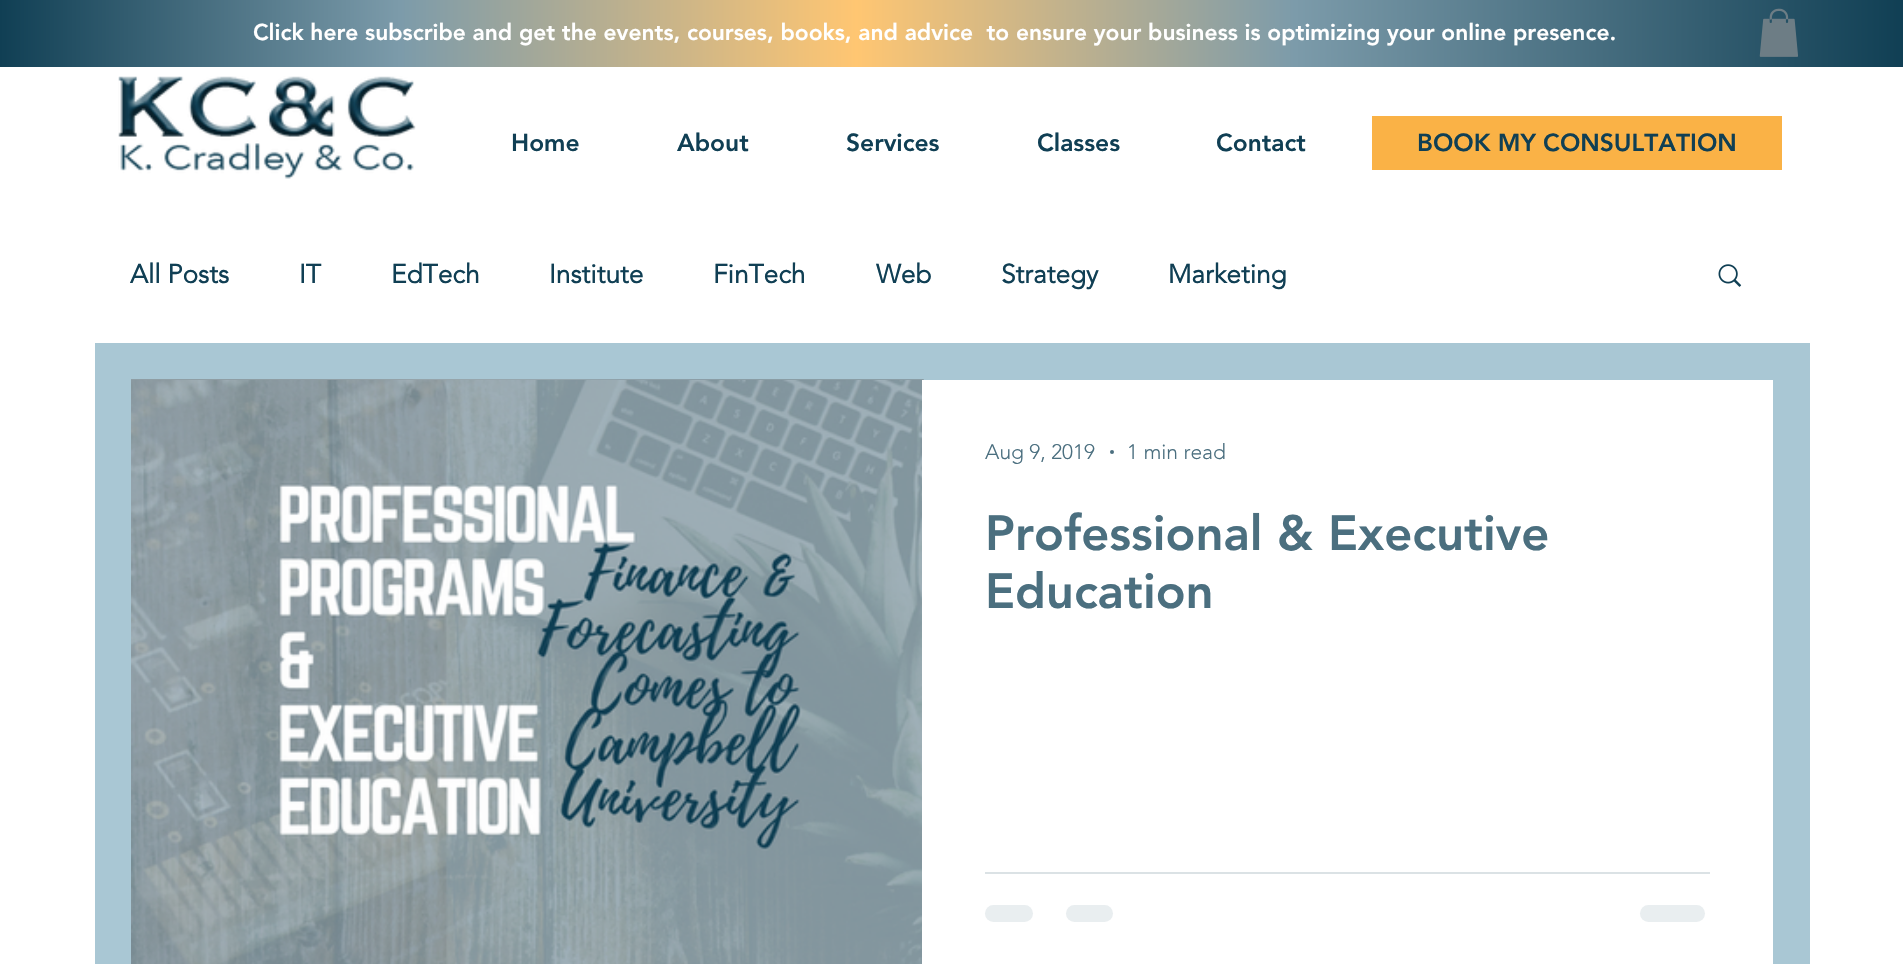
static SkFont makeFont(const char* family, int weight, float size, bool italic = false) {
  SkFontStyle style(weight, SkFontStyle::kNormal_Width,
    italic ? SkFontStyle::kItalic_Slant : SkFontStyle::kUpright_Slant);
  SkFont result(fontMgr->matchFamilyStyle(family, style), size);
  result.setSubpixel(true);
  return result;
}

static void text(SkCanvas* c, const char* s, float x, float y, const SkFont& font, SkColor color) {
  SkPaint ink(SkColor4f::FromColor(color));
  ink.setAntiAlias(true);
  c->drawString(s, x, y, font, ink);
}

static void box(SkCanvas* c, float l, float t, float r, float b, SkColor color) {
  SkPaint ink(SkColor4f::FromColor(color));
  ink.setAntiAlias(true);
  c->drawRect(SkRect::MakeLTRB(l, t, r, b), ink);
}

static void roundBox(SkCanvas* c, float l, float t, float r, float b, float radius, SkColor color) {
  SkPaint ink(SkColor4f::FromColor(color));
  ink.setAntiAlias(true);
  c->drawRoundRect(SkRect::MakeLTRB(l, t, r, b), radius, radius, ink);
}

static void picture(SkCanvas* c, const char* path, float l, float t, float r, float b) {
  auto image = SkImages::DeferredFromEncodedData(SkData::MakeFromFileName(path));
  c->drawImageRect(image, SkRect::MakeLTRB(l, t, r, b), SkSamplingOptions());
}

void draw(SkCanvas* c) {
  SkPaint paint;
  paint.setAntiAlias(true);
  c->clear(0xffffffff);
  {
    const SkColor colors[] = {0xff103f54, 0xff7c9baa, 0xffffc672, 0xff7c9baa, 0xff103f54};
    const float stops[] = {0, 0.21f, 0.45f, 0.68f, 1};
    const SkPoint ends[] = {{0, 33}, {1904, 33}};
    paint.setShader(SkGradientShader::MakeLinear(ends, colors, stops, 5, SkTileMode::kClamp));
    paint.setAlpha(255);
  }
  c->drawRect(SkRect::MakeLTRB(0, 0, 1903, 67), paint);
  SkFont face1 = makeFont("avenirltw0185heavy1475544", 900, 22.75f);
  text(c, "Click here subscribe and get the events, courses, books, and advice  to ensure your business is optimizing your online presence.", 253, 40, face1, 0xffffffff);
  picture(c, "img_01.png", 1759, 8, 1798, 57);
  picture(c, "img_02.png", 118, 76, 416, 179);
  SkFont face2 = makeFont("avenirltw0185heavy1475544", 900, 24.5f);
  text(c, "Home", 511, 151, face2, 0xff103f54);
  text(c, "About", 677, 151, face2, 0xff103f54);
  text(c, "Services", 846, 151, face2, 0xff103f54);
  text(c, "Classes", 1037, 151, face2, 0xff103f54);
  text(c, "Contact", 1216, 151, face2, 0xff103f54);
  box(c, 1372, 116, 1782, 170, 0xfffab246);
  text(c, "BOOK MY CONSULTATION", 1417, 151, face2, 0xff103f54);
  box(c, 95, 343, 1810, 964, 0xffa9c7d4);
  SkFont face3 = makeFont("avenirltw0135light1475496", 700, 26.25f);
  text(c, "All Posts", 130, 283, face3, 0xff103f54);
  text(c, "IT", 299, 283, face3, 0xff103f54);
  text(c, "EdTech", 391, 283, face3, 0xff103f54);
  text(c, "Institute", 549, 283, face3, 0xff103f54);
  text(c, "FinTech", 713, 283, face3, 0xff103f54);
  text(c, "Web", 876, 283, face3, 0xff103f54);
  text(c, "Strategy", 1001, 283, face3, 0xff103f54);
  text(c, "Marketing", 1168, 283, face3, 0xff103f54);
  picture(c, "img_03.png", 1718, 264, 1742, 287);
  picture(c, "img_04.png", 131, 379, 924, 380);
  picture(c, "img_05.png", 131, 380, 922, 964);
  box(c, 922, 380, 1773, 964, 0xffffffff);
  SkFont face4 = makeFont("avenirltw0135light1475496", 300, 21);
  text(c, "Aug 9, 2019", 985, 459, face4, 0xff4b6f7f);
  paint.setShader(nullptr);
  paint.setColor(0xff4b6f7f);
  c->drawCircle(1112, 452, 2, paint);
  text(c, "1 min read", 1127, 459, face4, 0xff4b6f7f);
  SkFont face5 = makeFont("avenirltw0185heavy1475544", 900, 49);
  text(c, "Professional & Executive", 985, 550, face5, 0xff4b6f7f);
  text(c, "Education", 985, 608, face5, 0xff4b6f7f);
  box(c, 985, 872, 1710, 874, 0xffdbe2e5);
  roundBox(c, 985, 905, 1033, 922, 8.5f, 0xffe9eef0);
  roundBox(c, 1066, 905, 1113, 922, 8.5f, 0xffe9eef0);
  roundBox(c, 1640, 905, 1705, 922, 8.5f, 0xffe9eef0);
}
